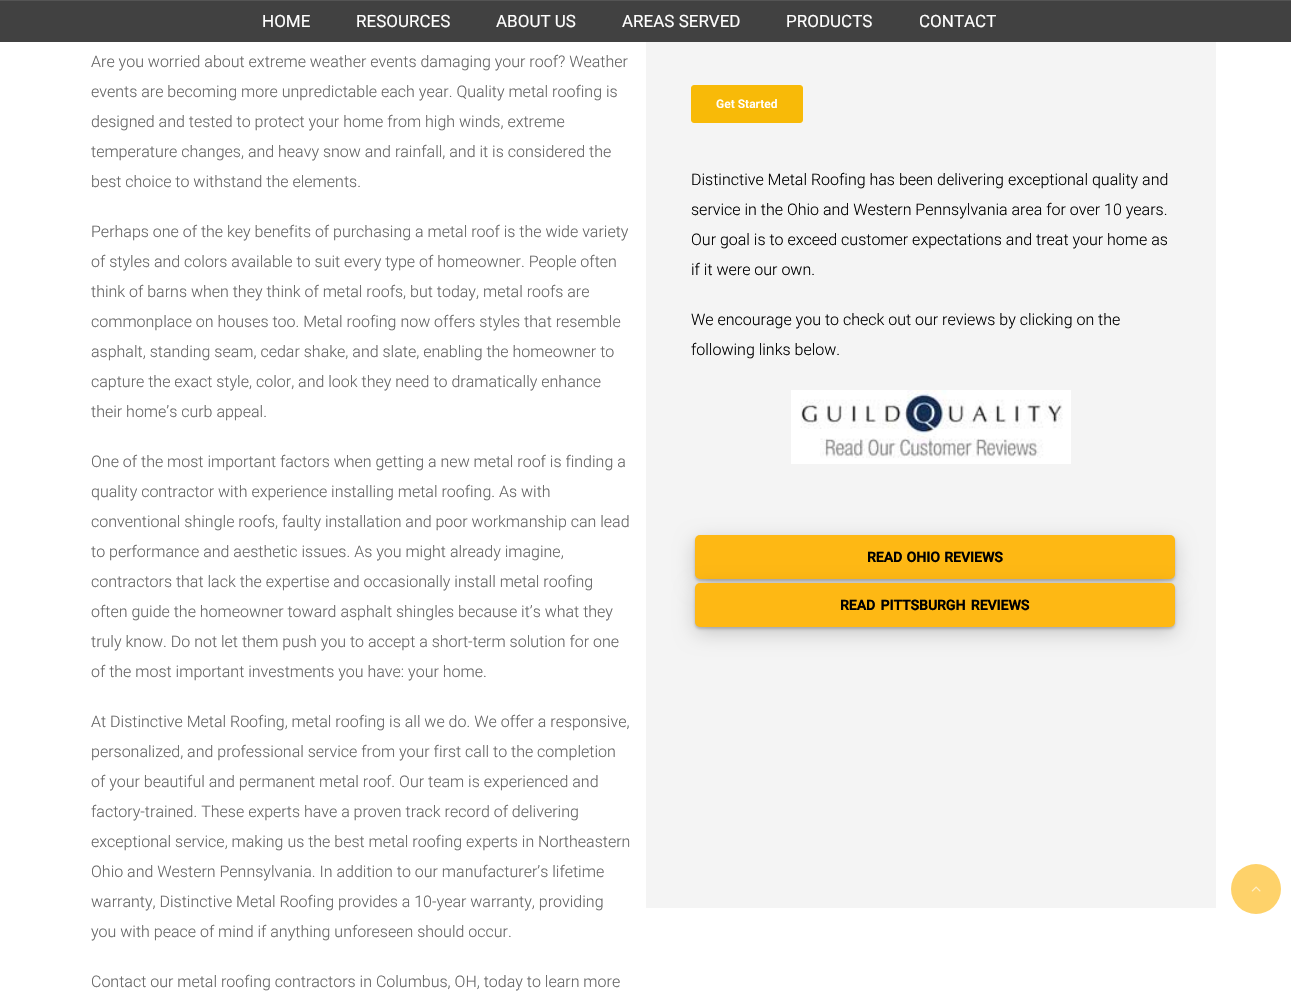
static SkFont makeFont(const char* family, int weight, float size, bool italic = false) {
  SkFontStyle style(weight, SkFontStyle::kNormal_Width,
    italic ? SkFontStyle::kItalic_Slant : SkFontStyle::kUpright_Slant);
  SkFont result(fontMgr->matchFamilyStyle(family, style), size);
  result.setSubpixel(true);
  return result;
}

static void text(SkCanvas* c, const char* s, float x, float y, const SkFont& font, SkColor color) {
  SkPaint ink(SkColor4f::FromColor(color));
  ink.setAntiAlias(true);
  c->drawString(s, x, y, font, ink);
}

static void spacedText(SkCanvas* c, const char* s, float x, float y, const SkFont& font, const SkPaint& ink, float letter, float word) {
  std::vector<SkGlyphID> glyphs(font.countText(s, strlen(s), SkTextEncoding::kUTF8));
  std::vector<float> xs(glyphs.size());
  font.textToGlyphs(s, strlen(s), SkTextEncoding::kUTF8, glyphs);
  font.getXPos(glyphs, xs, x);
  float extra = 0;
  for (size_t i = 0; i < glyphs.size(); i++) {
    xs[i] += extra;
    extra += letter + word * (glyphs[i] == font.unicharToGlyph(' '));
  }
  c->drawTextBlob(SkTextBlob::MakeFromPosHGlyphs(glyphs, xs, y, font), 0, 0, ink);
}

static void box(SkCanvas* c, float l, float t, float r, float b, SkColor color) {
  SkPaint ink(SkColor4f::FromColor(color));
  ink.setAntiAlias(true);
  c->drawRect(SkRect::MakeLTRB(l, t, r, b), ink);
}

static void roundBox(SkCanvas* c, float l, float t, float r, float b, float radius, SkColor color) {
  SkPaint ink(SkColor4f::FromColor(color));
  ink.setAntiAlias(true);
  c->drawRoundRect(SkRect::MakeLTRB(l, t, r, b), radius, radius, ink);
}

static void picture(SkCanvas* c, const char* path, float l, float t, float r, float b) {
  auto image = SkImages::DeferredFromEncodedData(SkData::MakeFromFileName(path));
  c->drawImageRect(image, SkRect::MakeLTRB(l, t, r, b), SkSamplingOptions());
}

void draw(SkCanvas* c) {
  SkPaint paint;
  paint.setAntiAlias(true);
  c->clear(0xffffffff);
  box(c, 0, 1, 1291, 42, 0xff414141);
  box(c, 0, 0, 1291, 1, 0xff545454);
  SkFont face1 = makeFont("Roboto", 400, 17);
  text(c, "HOME", 262, 27, face1, 0xffffffff);
  text(c, "RESOURCES", 356, 27, face1, 0xffffffff);
  text(c, "ABOUT US", 496, 27, face1, 0xffffffff);
  text(c, "AREAS SERVED", 622, 27, face1, 0xffffffff);
  text(c, "PRODUCTS", 786, 27, face1, 0xffffffff);
  text(c, "CONTACT", 919, 27, face1, 0xffffffff);
  SkFont face2 = makeFont("Roboto", 300, 16);
  text(c, "Are you worried about extreme weather events damaging your roof? Weather", 91, 67, face2, 0xff666666);
  text(c, "events are becoming more unpredictable each year. Quality metal roofing is", 91, 97, face2, 0xff666666);
  text(c, "designed and tested to protect your home from high winds, extreme", 91, 127, face2, 0xff666666);
  text(c, "temperature changes, and heavy snow and rainfall, and it is considered the", 91, 157, face2, 0xff666666);
  text(c, "best choice to withstand the elements.", 91, 187, face2, 0xff666666);
  text(c, "Perhaps one of the key benefits of purchasing a metal roof is the wide variety", 91, 237, face2, 0xff666666);
  text(c, "of styles and colors available to suit every type of homeowner. People often", 91, 267, face2, 0xff666666);
  text(c, "think of barns when they think of metal roofs, but today, metal roofs are", 91, 297, face2, 0xff666666);
  text(c, "commonplace on houses too. Metal roofing now offers styles that resemble", 91, 327, face2, 0xff666666);
  text(c, "asphalt, standing seam, cedar shake, and slate, enabling the homeowner to", 91, 357, face2, 0xff666666);
  text(c, "capture the exact style, color, and look they need to dramatically enhance", 91, 387, face2, 0xff666666);
  text(c, "their home’s curb appeal.", 91, 417, face2, 0xff666666);
  text(c, "One of the most important factors when getting a new metal roof is finding a", 91, 467, face2, 0xff666666);
  text(c, "quality contractor with experience installing metal roofing. As with", 91, 497, face2, 0xff666666);
  text(c, "conventional shingle roofs, faulty installation and poor workmanship can lead", 91, 527, face2, 0xff666666);
  text(c, "to performance and aesthetic issues. As you might already imagine,", 91, 557, face2, 0xff666666);
  text(c, "contractors that lack the expertise and occasionally install metal roofing", 91, 587, face2, 0xff666666);
  text(c, "often guide the homeowner toward asphalt shingles because it’s what they", 91, 617, face2, 0xff666666);
  text(c, "truly know. Do not let them push you to accept a short-term solution for one", 91, 647, face2, 0xff666666);
  text(c, "of the most important investments you have: your home.", 91, 677, face2, 0xff666666);
  text(c, "At Distinctive Metal Roofing, metal roofing is all we do. We offer a responsive,", 91, 727, face2, 0xff666666);
  text(c, "personalized, and professional service from your first call to the completion", 91, 757, face2, 0xff666666);
  text(c, "of your beautiful and permanent metal roof. Our team is experienced and", 91, 787, face2, 0xff666666);
  text(c, "factory-trained. These experts have a proven track record of delivering", 91, 817, face2, 0xff666666);
  text(c, "exceptional service, making us the best metal roofing experts in Northeastern", 91, 847, face2, 0xff666666);
  text(c, "Ohio and Western Pennsylvania. In addition to our manufacturer’s lifetime", 91, 877, face2, 0xff666666);
  text(c, "warranty, Distinctive Metal Roofing provides a 10-year warranty, providing", 91, 907, face2, 0xff666666);
  text(c, "you with peace of mind if anything unforeseen should occur.", 91, 937, face2, 0xff666666);
  text(c, "Contact our metal roofing contractors in Columbus, OH, today to learn more", 91, 987, face2, 0xff666666);
  box(c, 646, 42, 1216, 908, 0xfff4f4f4);
  picture(c, "img_01.png", 691, 85, 803, 123);
  text(c, "Distinctive Metal Roofing has been delivering exceptional quality and", 691, 185, face2, 0xff000000);
  text(c, "service in the Ohio and Western Pennsylvania area for over 10 years.", 691, 215, face2, 0xff000000);
  text(c, "Our goal is to exceed customer expectations and treat your home as", 691, 245, face2, 0xff000000);
  text(c, "if it were our own.", 691, 275, face2, 0xff000000);
  text(c, "We encourage you to check out our reviews by clicking on the", 691, 325, face2, 0xff000000);
  text(c, "following links below.", 691, 355, face2, 0xff000000);
  picture(c, "img_02.png", 791, 390, 1071, 464);
  paint.setColor(0x30000000);
  paint.setMaskFilter(SkMaskFilter::MakeBlur(kNormal_SkBlurStyle, 10));
  c->drawRoundRect(SkRect::MakeLTRB(695, 541, 1175, 585), 5, 5, paint);
  paint.setMaskFilter(nullptr);
  paint.setColor(0x33000000);
  paint.setMaskFilter(SkMaskFilter::MakeBlur(kNormal_SkBlurStyle, 1.5f));
  c->drawRoundRect(SkRect::MakeLTRB(695, 537, 1175, 581), 5, 5, paint);
  paint.setMaskFilter(nullptr);
  roundBox(c, 695, 535, 1175, 579, 5, 0xfffeb814);
  SkFont face3 = makeFont("Roboto", 700, 14);
  paint.setColor(0xff000000);
  spacedText(c, "READ OHIO REVIEWS", 867, 562, face3, paint, 0, 1);
  paint.setColor(0x30000000);
  paint.setMaskFilter(SkMaskFilter::MakeBlur(kNormal_SkBlurStyle, 10));
  c->drawRoundRect(SkRect::MakeLTRB(695, 589, 1175, 633), 5, 5, paint);
  paint.setMaskFilter(nullptr);
  paint.setColor(0x33000000);
  paint.setMaskFilter(SkMaskFilter::MakeBlur(kNormal_SkBlurStyle, 1.5f));
  c->drawRoundRect(SkRect::MakeLTRB(695, 585, 1175, 629), 5, 5, paint);
  paint.setMaskFilter(nullptr);
  roundBox(c, 695, 583, 1175, 627, 5, 0xfffeb814);
  paint.setColor(0xff000000);
  spacedText(c, "READ PITTSBURGH REVIEWS", 840, 610, face3, paint, 0, 2);
  paint.setColor(0xfffed26a);
  c->drawCircle(1256, 889, 25, paint);
  picture(c, "img_03.png", 1251, 886, 1261, 892);
}
